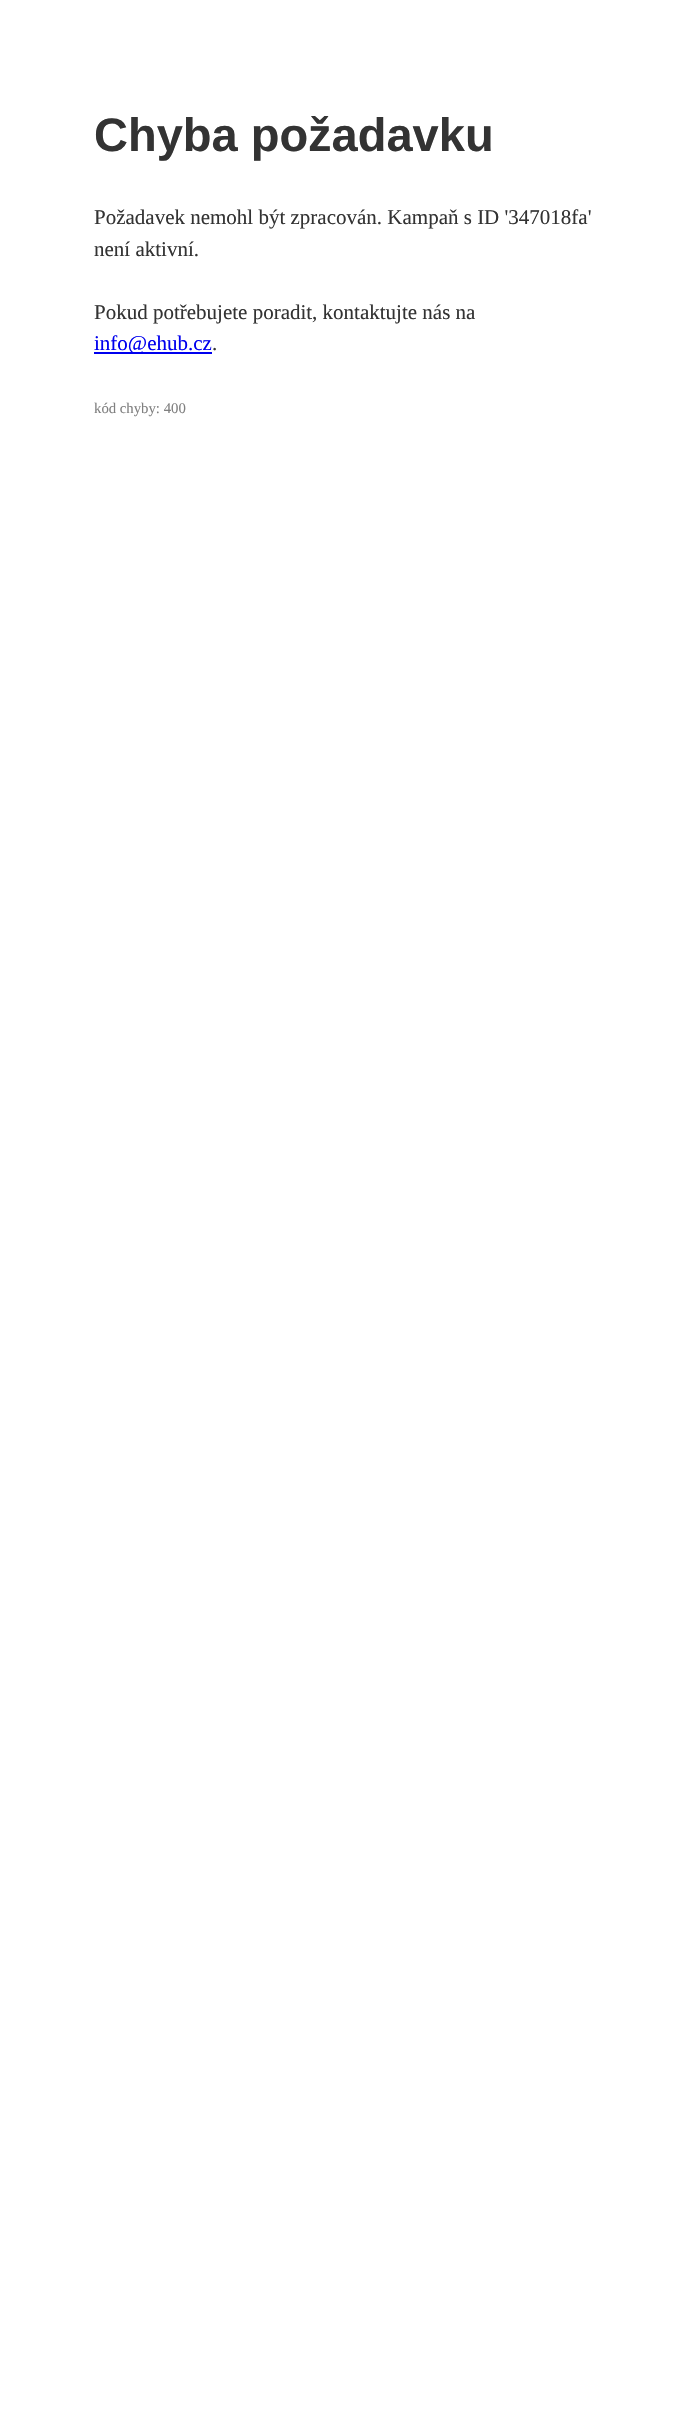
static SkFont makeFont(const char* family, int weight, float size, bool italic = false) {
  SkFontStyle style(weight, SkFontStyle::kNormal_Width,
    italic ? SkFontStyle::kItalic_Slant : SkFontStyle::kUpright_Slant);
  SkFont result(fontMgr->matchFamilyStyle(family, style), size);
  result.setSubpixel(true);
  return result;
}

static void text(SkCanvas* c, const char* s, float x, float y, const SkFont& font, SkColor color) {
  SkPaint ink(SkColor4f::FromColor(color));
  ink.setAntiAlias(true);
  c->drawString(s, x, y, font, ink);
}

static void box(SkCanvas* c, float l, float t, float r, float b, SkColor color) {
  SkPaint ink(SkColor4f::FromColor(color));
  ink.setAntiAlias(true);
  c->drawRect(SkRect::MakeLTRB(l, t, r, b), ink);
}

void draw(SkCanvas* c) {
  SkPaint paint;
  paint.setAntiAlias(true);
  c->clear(0xffffffff);
  SkFont face1 = makeFont("Liberation Sans", 700, 47);
  text(c, "Chyba požadavku", 94, 151, face1, 0xff333333);
  SkFont face2 = makeFont("Liberation Serif", 400, 21);
  text(c, "Požadavek nemohl být zpracován. Kampaň s ID '347018fa'", 94, 224, face2, 0xff333333);
  text(c, "není aktivní.", 94, 256, face2, 0xff333333);
  text(c, "Pokud potřebujete poradit, kontaktujte nás na", 94, 319, face2, 0xff333333);
  box(c, 94, 352, 212, 354, 0xff0000ee);
  text(c, "info@ehub.cz", 94, 350, face2, 0xff0000ee);
  text(c, ".", 212, 350, face2, 0xff333333);
  SkFont face3 = makeFont("Liberation Serif", 400, 14.75f);
  text(c, "kód chyby: 400", 94, 413, face3, 0xff808080);
}
